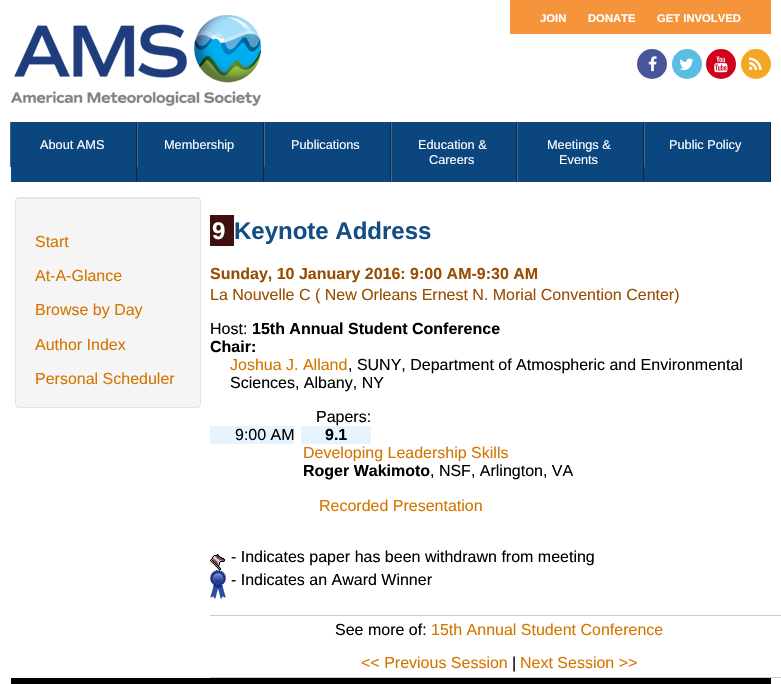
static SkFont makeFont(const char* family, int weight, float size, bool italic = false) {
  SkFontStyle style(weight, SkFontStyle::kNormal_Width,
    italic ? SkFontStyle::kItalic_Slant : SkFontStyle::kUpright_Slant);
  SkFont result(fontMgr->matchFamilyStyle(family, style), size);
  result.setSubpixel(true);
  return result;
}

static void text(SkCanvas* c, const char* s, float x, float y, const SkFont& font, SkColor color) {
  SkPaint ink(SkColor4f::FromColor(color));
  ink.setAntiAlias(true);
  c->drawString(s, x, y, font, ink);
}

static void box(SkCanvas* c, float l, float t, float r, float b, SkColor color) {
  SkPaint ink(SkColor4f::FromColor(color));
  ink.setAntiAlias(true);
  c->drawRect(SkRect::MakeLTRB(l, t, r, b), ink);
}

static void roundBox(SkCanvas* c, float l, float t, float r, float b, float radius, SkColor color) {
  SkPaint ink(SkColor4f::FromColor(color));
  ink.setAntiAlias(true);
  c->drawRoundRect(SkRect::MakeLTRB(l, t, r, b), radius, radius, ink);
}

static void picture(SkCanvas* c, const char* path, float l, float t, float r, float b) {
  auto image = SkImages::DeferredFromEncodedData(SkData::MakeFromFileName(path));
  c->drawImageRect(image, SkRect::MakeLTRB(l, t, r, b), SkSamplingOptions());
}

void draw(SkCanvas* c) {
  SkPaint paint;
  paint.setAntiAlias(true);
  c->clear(0xffffffff);
  picture(c, "img_01.png", 11, 15, 261, 106);
  box(c, 510, 0, 771, 34, 0xfff5943a);
  SkFont face1 = makeFont("Liberation Sans", 700, 11.25f);
  text(c, "JOIN", 540, 22, face1, 0xffffffff);
  text(c, "DONATE", 588, 22, face1, 0xffffffff);
  text(c, "GET INVOLVED", 657, 22, face1, 0xffffffff);
  paint.setColor(0xff48559d);
  c->drawCircle(652, 64, 15, paint);
  picture(c, "img_02.png", 648, 56, 657, 72);
  paint.setColor(0xff59bee1);
  c->drawCircle(687, 64, 15, paint);
  picture(c, "img_03.png", 679, 58, 694, 70);
  paint.setColor(0xffd0021b);
  c->drawCircle(721, 64, 15, paint);
  picture(c, "img_04.png", 714, 56, 728, 73);
  paint.setColor(0xfff5a623);
  c->drawCircle(756, 64, 15, paint);
  picture(c, "img_05.png", 749, 57, 762, 70);
  box(c, 11, 122, 770, 182, 0xff0b467f);
  box(c, 136, 122, 137, 182, 0xff222222);
  box(c, 10, 122, 11, 167, 0xff2c70af);
  SkFont face2 = makeFont("Liberation Sans", 400, 12.75f);
  text(c, "About AMS", 40, 149, face2, 0xffffffff);
  box(c, 263, 122, 264, 182, 0xff222222);
  box(c, 137, 122, 138, 167, 0xff2c70af);
  text(c, "Membership", 164, 149, face2, 0xffffffff);
  box(c, 390, 122, 391, 182, 0xff222222);
  box(c, 264, 122, 265, 167, 0xff2c70af);
  text(c, "Publications", 291, 149, face2, 0xffffffff);
  box(c, 516, 122, 517, 182, 0xff222222);
  box(c, 391, 122, 392, 182, 0xff2c70af);
  text(c, "Education &", 418, 149, face2, 0xffffffff);
  text(c, "Careers", 429, 164, face2, 0xffffffff);
  box(c, 643, 122, 644, 182, 0xff222222);
  box(c, 517, 122, 518, 182, 0xff2c70af);
  text(c, "Meetings &", 547, 149, face2, 0xffffffff);
  text(c, "Events", 559, 164, face2, 0xffffffff);
  box(c, 770, 122, 771, 182, 0xff222222);
  box(c, 644, 122, 645, 167, 0xff2c70af);
  text(c, "Public Policy", 669, 149, face2, 0xffffffff);
  roundBox(c, 15, 197, 201, 408, 4, 0xfff5f5f5);
  paint.setColor(0xffe9e9e9);
  c->drawPath(SkPathBuilder().moveTo(19, 199).lineTo(198, 199).lineTo(199, 200).lineTo(200, 202).cubicTo(200, 200, 199, 198, 197, 198).lineTo(18, 198).cubicTo(16, 199, 16, 200, 16, 202).cubicTo(16, 200, 17, 199, 19, 199).close().detach(), paint);
  paint.setStyle(SkPaint::kStroke_Style);
  paint.setStrokeWidth(1);
  paint.setColor(0xffe3e3e3);
  c->drawRoundRect(SkRect::MakeLTRB(15.5f, 197.5f, 200.5f, 407.5f), 3.5f, 3.5f, paint);
  SkFont face3 = makeFont("Liberation Sans", 400, 16);
  text(c, "Start", 35, 247, face3, 0xffd47500);
  text(c, "At-A-Glance", 35, 281, face3, 0xffd47500);
  text(c, "Browse by Day", 35, 315, face3, 0xffd47500);
  text(c, "Author Index", 35, 350, face3, 0xffd47500);
  text(c, "Personal Scheduler", 35, 384, face3, 0xffd47500);
  box(c, 210, 215, 234, 246, 0xff401010);
  SkFont face4 = makeFont("Liberation Sans", 700, 24);
  text(c, "9", 212, 239, face4, 0xffffffff);
  text(c, "Keynote Address", 234, 239, face4, 0xff124d84);
  SkFont face5 = makeFont("Liberation Sans", 700, 16);
  text(c, "Sunday, 10 January 2016: 9:00 AM-9:30 AM", 210, 279, face5, 0xff994d00);
  text(c, "La Nouvelle C ( New Orleans Ernest N. Morial Convention Center)", 210, 300, face3, 0xff994d00);
  text(c, "Host:", 210, 334, face3, 0xff000000);
  text(c, "15th Annual Student Conference", 252, 334, face5, 0xff000000);
  text(c, "Chair:", 210, 352, face5, 0xff000000);
  text(c, "Joshua J. Alland", 230, 370, face3, 0xffd47500);
  text(c, ", SUNY, Department of Atmospheric and Environmental", 348, 370, face3, 0xff000000);
  text(c, "Sciences, Albany, NY", 230, 388, face3, 0xff000000);
  text(c, "Papers:", 316, 422, face3, 0xff000000);
  box(c, 210, 426, 294, 444, 0xffe6f4ff);
  text(c, "9:00 AM", 235, 440, face3, 0xff000000);
  box(c, 301, 426, 371, 444, 0xffe6f4ff);
  text(c, "9.1", 325, 440, face5, 0xff000000);
  text(c, "Developing Leadership Skills", 303, 458, face3, 0xffd47500);
  text(c, "Roger Wakimoto", 303, 476, face5, 0xff000000);
  text(c, ", NSF, Arlington, VA", 430, 476, face3, 0xff000000);
  text(c, "Recorded Presentation", 319, 511, face3, 0xffd47500);
  picture(c, "img_06.png", 210, 554, 225, 570);
  text(c, "- Indicates paper has been withdrawn from meeting", 231, 562, face3, 0xff000000);
  picture(c, "img_07.png", 210, 570, 226, 599);
  text(c, "- Indicates an Award Winner", 231, 585, face3, 0xff000000);
  box(c, 210, 615, 781, 616, 0xffcccccc);
  text(c, "See more of:", 335, 635, face3, 0xff000000);
  text(c, "15th Annual Student Conference", 431, 635, face3, 0xffd47500);
  box(c, 210, 677, 781, 678, 0xffcccccc);
  text(c, "<< Previous Session", 361, 668, face3, 0xffd47500);
  text(c, "|", 512, 668, face3, 0xff000000);
  text(c, "Next Session >>", 520, 668, face3, 0xffd47500);
  box(c, 11, 678, 771, 684, 0xff000000);
}
